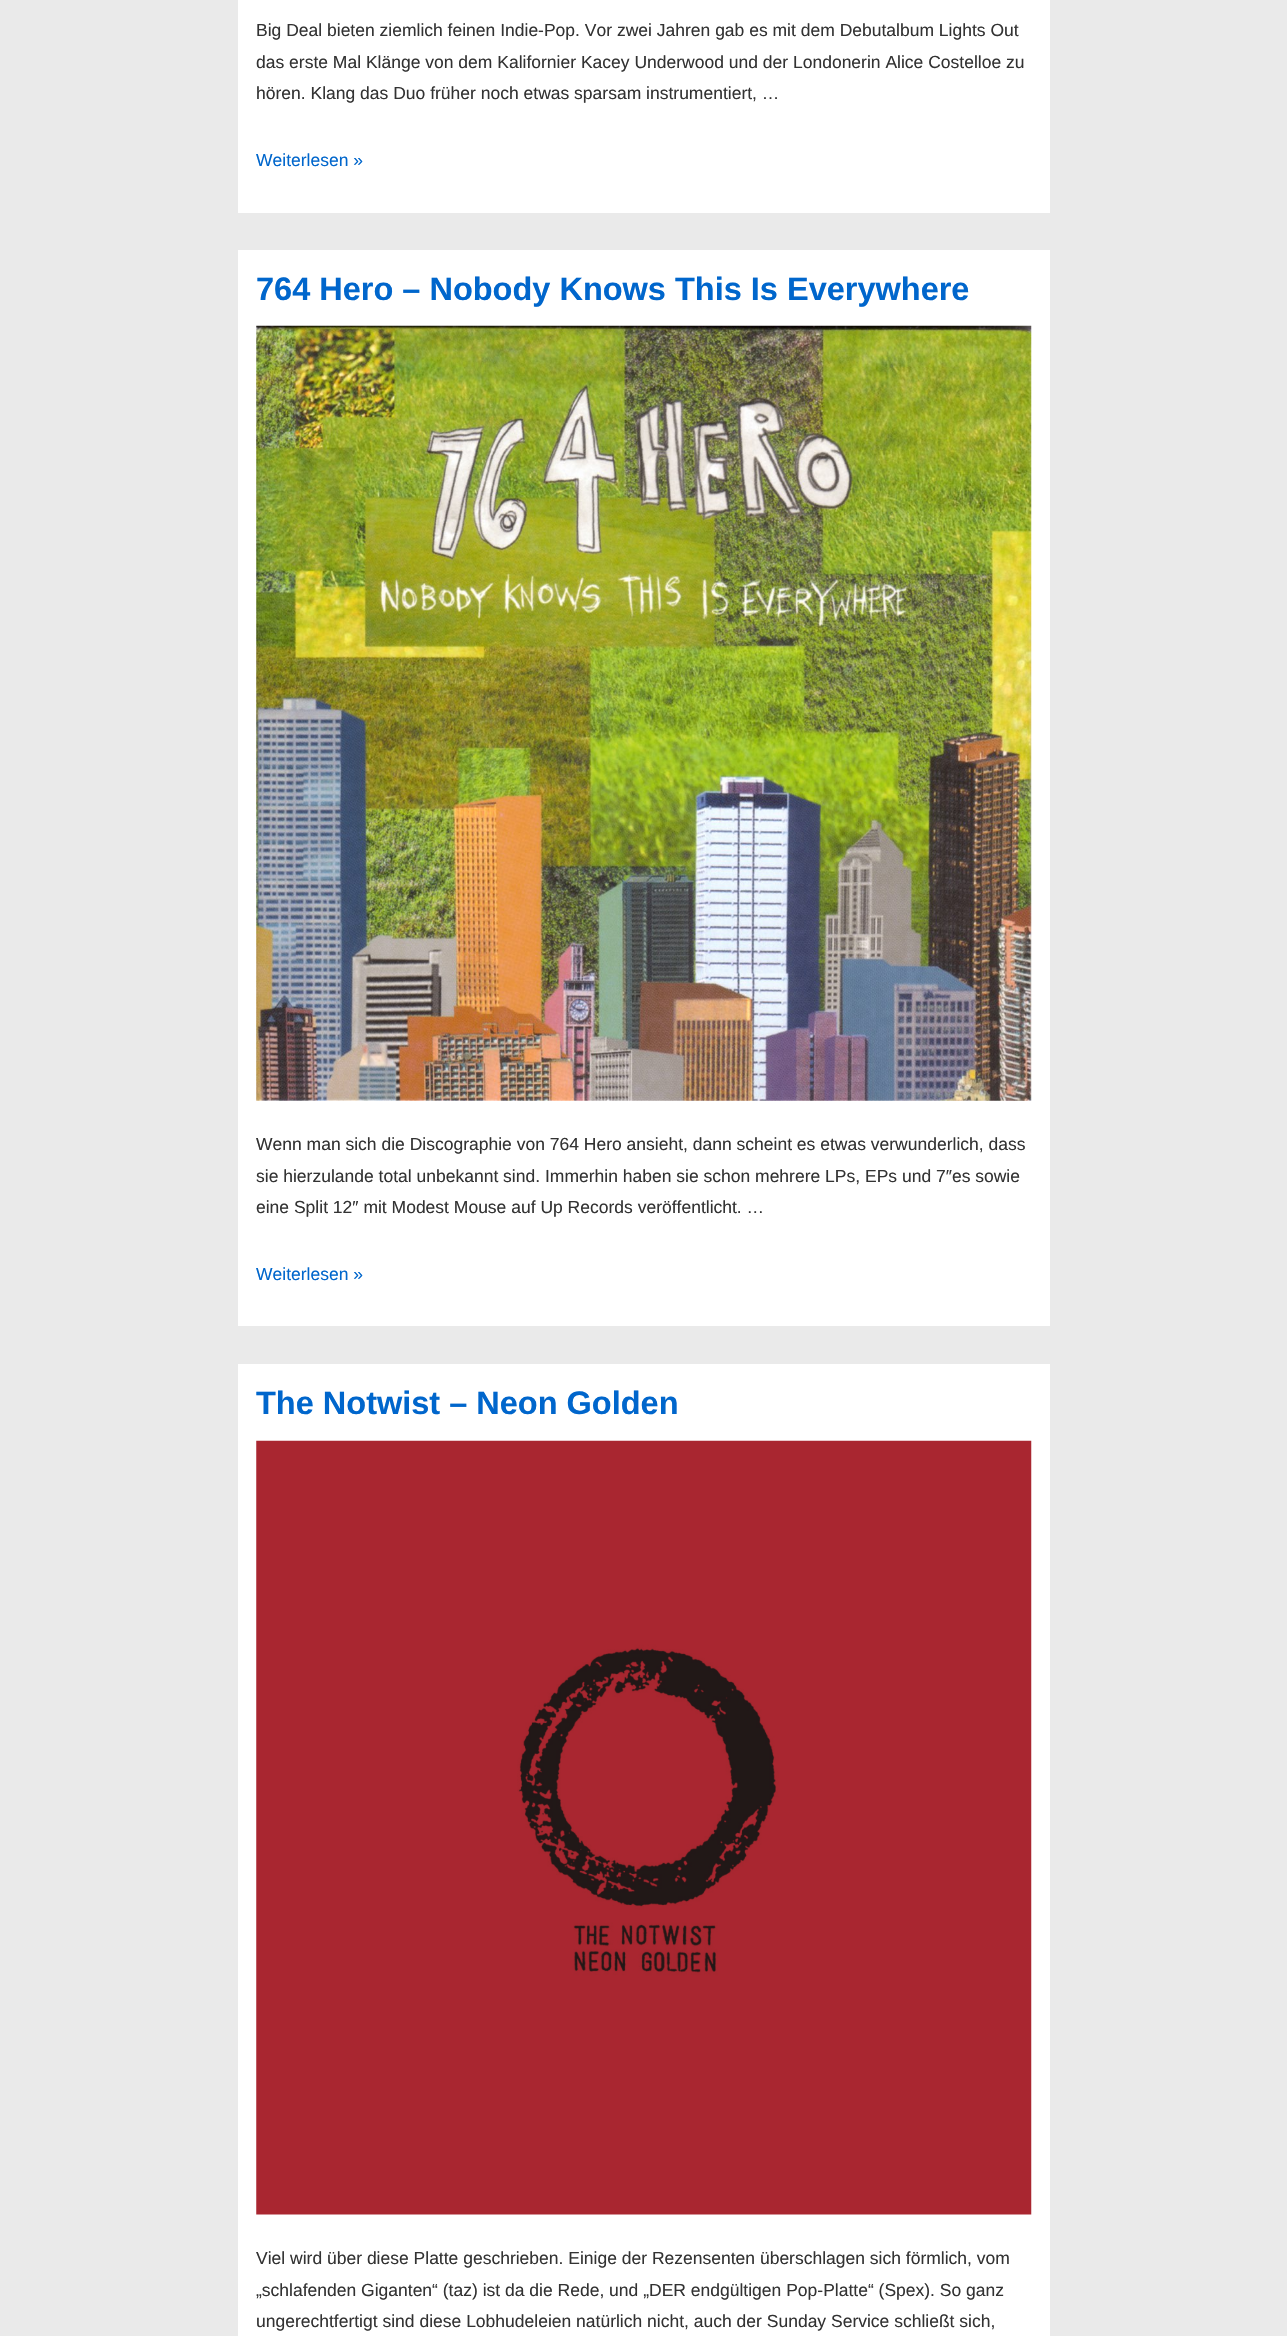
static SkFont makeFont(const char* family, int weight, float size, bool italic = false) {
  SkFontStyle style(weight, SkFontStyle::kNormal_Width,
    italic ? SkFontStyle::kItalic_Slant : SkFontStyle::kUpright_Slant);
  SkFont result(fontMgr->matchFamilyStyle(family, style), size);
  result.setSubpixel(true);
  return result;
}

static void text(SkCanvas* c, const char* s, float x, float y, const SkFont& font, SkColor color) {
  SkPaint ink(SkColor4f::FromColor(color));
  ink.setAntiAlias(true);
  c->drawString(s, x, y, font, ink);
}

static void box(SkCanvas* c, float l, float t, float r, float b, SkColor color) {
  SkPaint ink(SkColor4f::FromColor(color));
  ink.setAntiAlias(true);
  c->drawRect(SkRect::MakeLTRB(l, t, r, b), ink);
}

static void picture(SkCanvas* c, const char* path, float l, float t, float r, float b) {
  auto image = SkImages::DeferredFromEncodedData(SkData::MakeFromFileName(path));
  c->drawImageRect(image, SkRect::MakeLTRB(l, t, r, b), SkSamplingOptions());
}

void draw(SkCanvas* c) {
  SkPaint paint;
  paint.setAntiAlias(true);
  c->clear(0xffeaeaea);
  box(c, 238, 0, 1050, 213, 0xffffffff);
  SkFont face1 = makeFont("Liberation Sans", 400, 17.5f);
  text(c, "Big Deal bieten ziemlich feinen Indie-Pop. Vor zwei Jahren gab es mit dem Debutalbum Lights Out", 256, 36, face1, 0xff333333);
  text(c, "das erste Mal Klänge von dem Kalifornier Kacey Underwood und der Londonerin Alice Costelloe zu", 256, 68, face1, 0xff333333);
  text(c, "hören. Klang das Duo früher noch etwas sparsam instrumentiert, …", 256, 99, face1, 0xff333333);
  text(c, "Weiterlesen »", 256, 166, face1, 0xff0066cc);
  box(c, 238, 250, 1050, 1326, 0xffffffff);
  SkFont face2 = makeFont("Liberation Sans", 700, 32.5f);
  text(c, "764 Hero – Nobody Knows This Is Everywhere", 256, 300, face2, 0xff0066cc);
  picture(c, "img_01.png", 256, 325, 1032, 1101);
  text(c, "Wenn man sich die Discographie von 764 Hero ansieht, dann scheint es etwas verwunderlich, dass", 256, 1150, face1, 0xff333333);
  text(c, "sie hierzulande total unbekannt sind. Immerhin haben sie schon mehrere LPs, EPs und 7″es sowie", 256, 1182, face1, 0xff333333);
  text(c, "eine Split 12″ mit Modest Mouse auf Up Records veröffentlicht. …", 256, 1213, face1, 0xff333333);
  text(c, "Weiterlesen »", 256, 1280, face1, 0xff0066cc);
  box(c, 238, 1364, 1050, 2336, 0xffffffff);
  text(c, "The Notwist – Neon Golden", 256, 1414, face2, 0xff0066cc);
  picture(c, "img_02.png", 256, 1440, 1032, 2215);
  text(c, "Viel wird über diese Platte geschrieben. Einige der Rezensenten überschlagen sich förmlich, vom", 256, 2264, face1, 0xff333333);
  text(c, "„schlafenden Giganten“ (taz) ist da die Rede, und „DER endgültigen Pop-Platte“ (Spex). So ganz", 256, 2296, face1, 0xff333333);
  text(c, "ungerechtfertigt sind diese Lobhudeleien natürlich nicht, auch der Sunday Service schließt sich,", 256, 2327, face1, 0xff333333);
}
